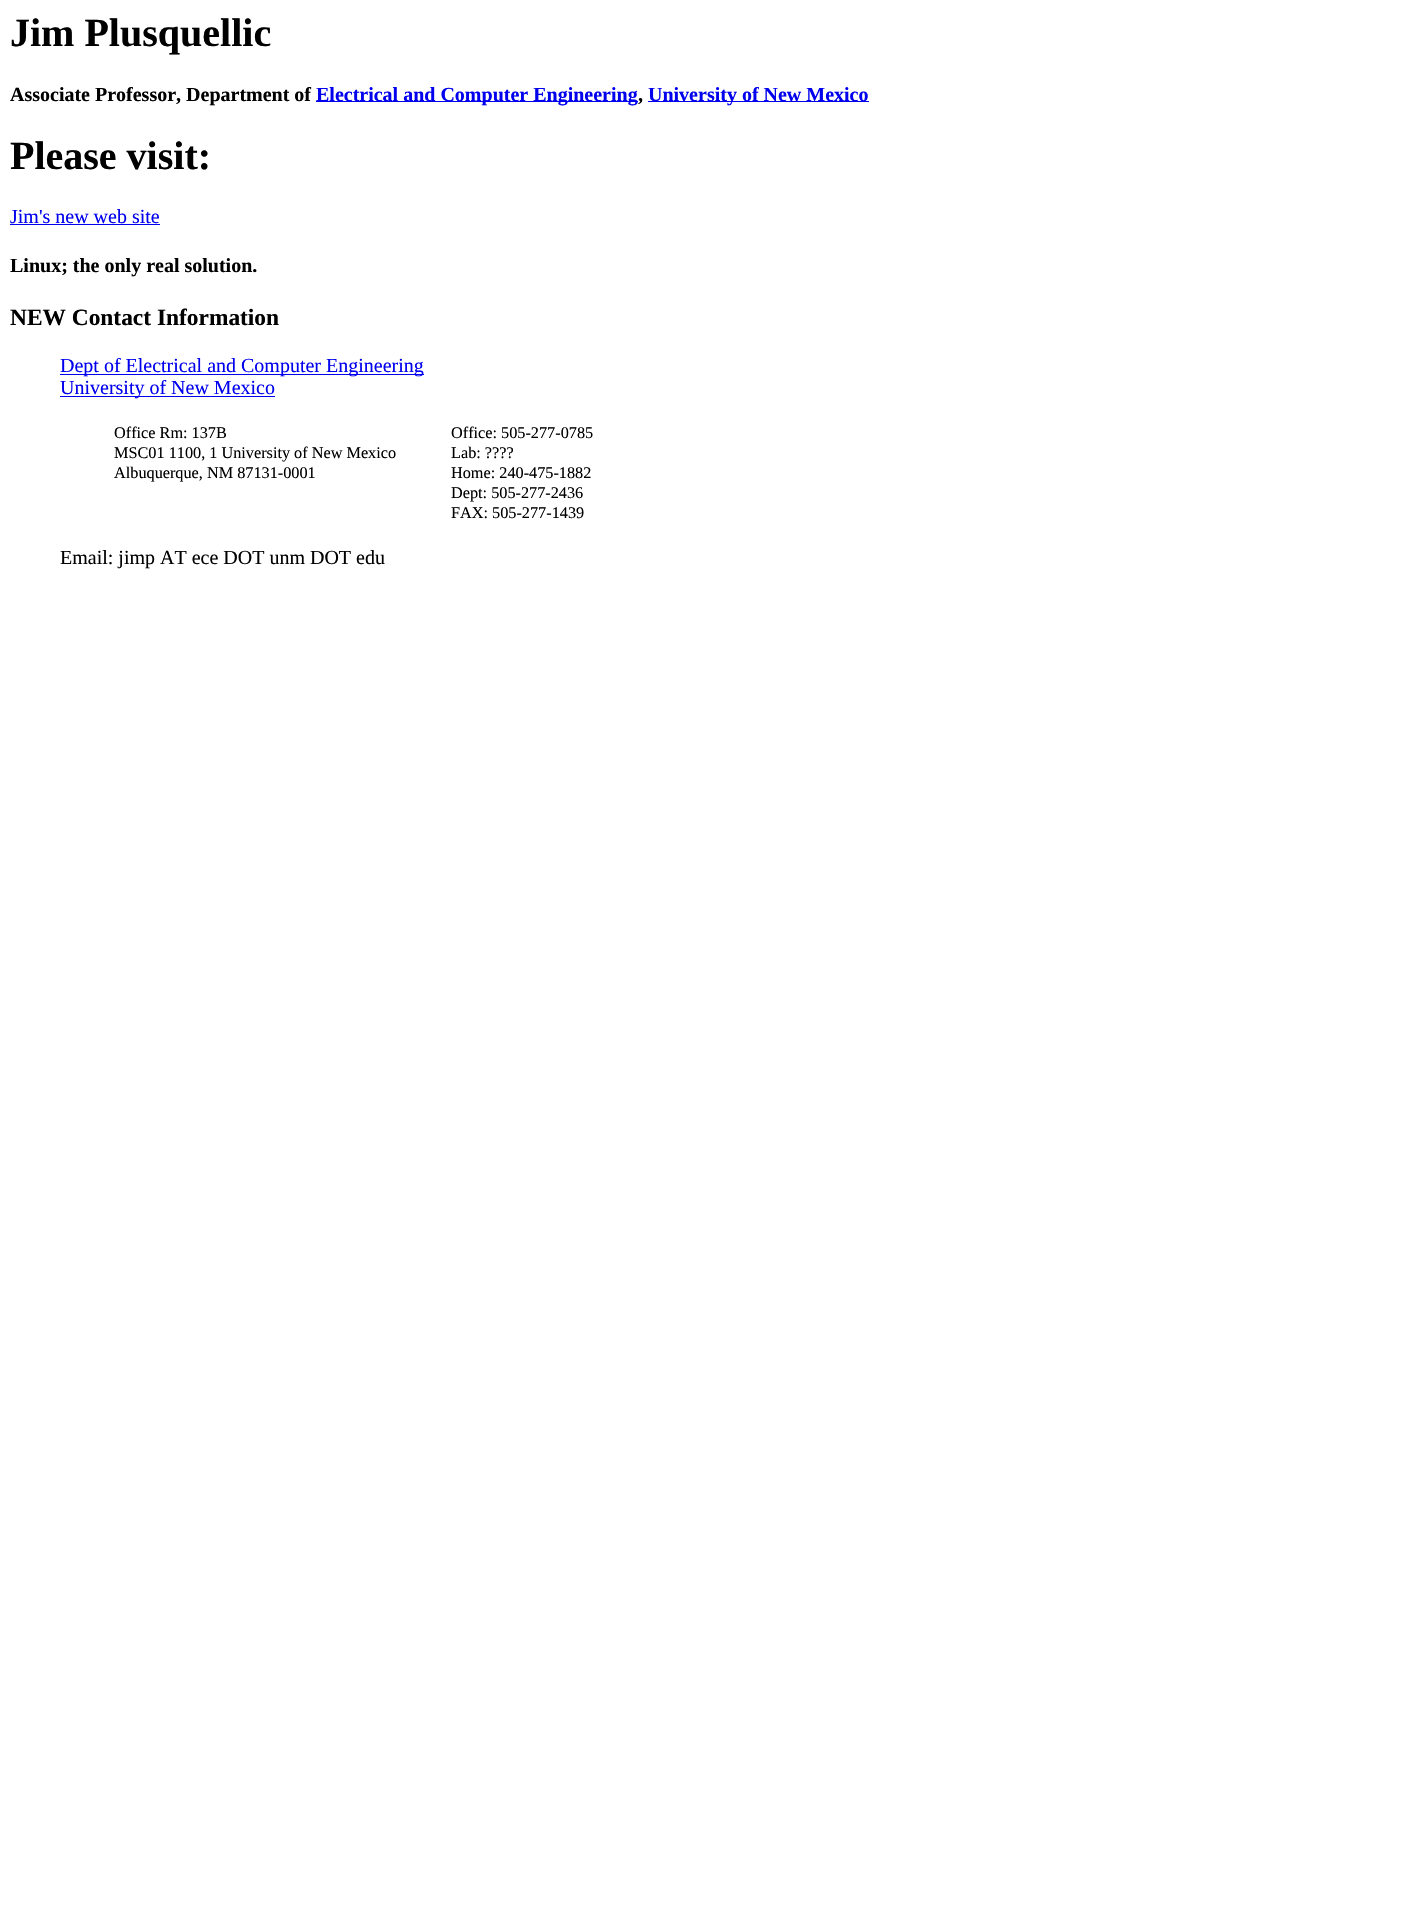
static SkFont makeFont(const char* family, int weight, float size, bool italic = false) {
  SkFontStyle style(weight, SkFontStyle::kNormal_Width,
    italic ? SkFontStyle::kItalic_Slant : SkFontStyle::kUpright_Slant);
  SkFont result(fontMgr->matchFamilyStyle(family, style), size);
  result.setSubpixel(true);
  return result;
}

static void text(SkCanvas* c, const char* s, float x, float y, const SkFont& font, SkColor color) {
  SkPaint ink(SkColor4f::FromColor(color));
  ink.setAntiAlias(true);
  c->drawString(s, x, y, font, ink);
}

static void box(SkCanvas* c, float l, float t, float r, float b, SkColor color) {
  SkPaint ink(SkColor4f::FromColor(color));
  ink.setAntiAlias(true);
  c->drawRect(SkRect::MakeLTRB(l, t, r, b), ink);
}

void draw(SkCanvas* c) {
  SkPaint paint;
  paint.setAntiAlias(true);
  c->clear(0xffffffff);
  SkFont face1 = makeFont("Liberation Serif", 700, 40);
  text(c, "Jim Plusquellic", 10, 46, face1, 0xff000000);
  SkFont face2 = makeFont("Liberation Serif", 700, 20);
  text(c, "Associate Professor, Department of", 10, 101, face2, 0xff000000);
  box(c, 316, 101, 638, 102, 0xff0000ee);
  text(c, "Electrical and Computer Engineering", 316, 101, face2, 0xff0000ee);
  text(c, ",", 638, 101, face2, 0xff000000);
  box(c, 648, 101, 869, 102, 0xff0000ee);
  text(c, "University of New Mexico", 648, 101, face2, 0xff0000ee);
  text(c, "Please visit:", 10, 169, face1, 0xff000000);
  SkFont face3 = makeFont("Liberation Serif", 400, 20);
  text(c, "Jim's new web site", 10, 223, face3, 0xff0000ee);
  box(c, 10, 224, 160, 225, 0xff0000ee);
  text(c, "Linux; the only real solution.", 10, 272, face2, 0xff000000);
  SkFont face4 = makeFont("Liberation Serif", 700, 23.4f);
  text(c, "NEW Contact Information", 10, 325, face4, 0xff000000);
  box(c, 60, 374, 424, 375, 0xff0000ee);
  text(c, "Dept of Electrical and Computer Engineering", 60, 372, face3, 0xff0000ee);
  box(c, 60, 396, 275, 397, 0xff0000ee);
  text(c, "University of New Mexico", 60, 394, face3, 0xff0000ee);
  SkFont face5 = makeFont("Liberation Serif", 400, 16.25f);
  text(c, "Office Rm: 137B", 114, 438, face5, 0xff000000);
  text(c, "MSC01 1100, 1 University of New Mexico", 114, 458, face5, 0xff000000);
  text(c, "Albuquerque, NM 87131-0001", 114, 478, face5, 0xff000000);
  text(c, "Office: 505-277-0785", 451, 438, face5, 0xff000000);
  text(c, "Lab: ?\077?\077", 451, 458, face5, 0xff000000);
  text(c, "Home: 240-475-1882", 451, 478, face5, 0xff000000);
  text(c, "Dept: 505-277-2436", 451, 498, face5, 0xff000000);
  text(c, "FAX: 505-277-1439", 451, 518, face5, 0xff000000);
  text(c, "Email: jimp AT ece DOT unm DOT edu", 60, 564, face3, 0xff000000);
}
